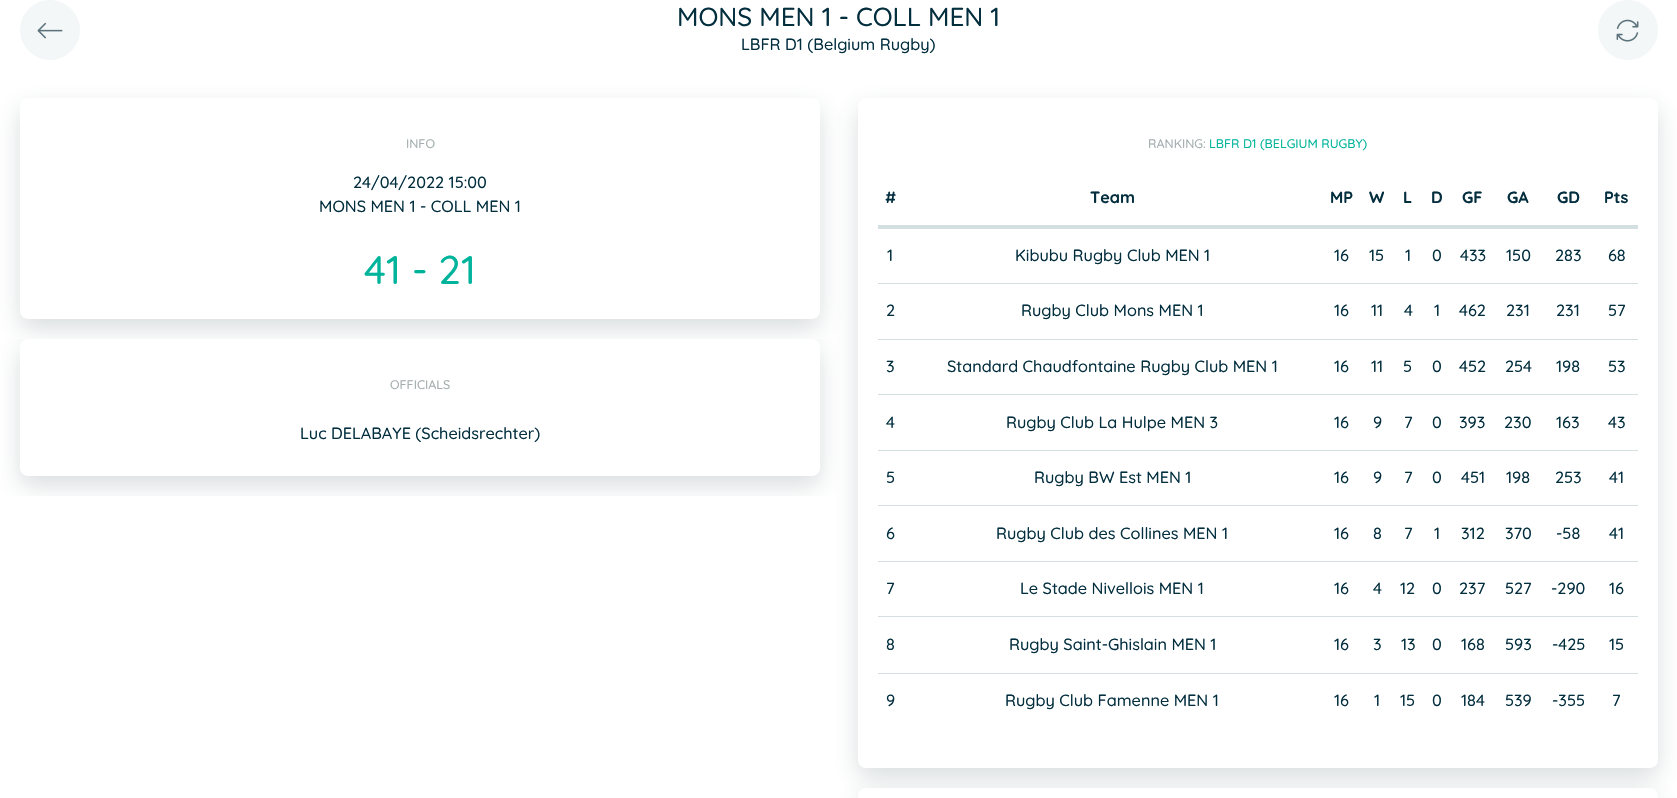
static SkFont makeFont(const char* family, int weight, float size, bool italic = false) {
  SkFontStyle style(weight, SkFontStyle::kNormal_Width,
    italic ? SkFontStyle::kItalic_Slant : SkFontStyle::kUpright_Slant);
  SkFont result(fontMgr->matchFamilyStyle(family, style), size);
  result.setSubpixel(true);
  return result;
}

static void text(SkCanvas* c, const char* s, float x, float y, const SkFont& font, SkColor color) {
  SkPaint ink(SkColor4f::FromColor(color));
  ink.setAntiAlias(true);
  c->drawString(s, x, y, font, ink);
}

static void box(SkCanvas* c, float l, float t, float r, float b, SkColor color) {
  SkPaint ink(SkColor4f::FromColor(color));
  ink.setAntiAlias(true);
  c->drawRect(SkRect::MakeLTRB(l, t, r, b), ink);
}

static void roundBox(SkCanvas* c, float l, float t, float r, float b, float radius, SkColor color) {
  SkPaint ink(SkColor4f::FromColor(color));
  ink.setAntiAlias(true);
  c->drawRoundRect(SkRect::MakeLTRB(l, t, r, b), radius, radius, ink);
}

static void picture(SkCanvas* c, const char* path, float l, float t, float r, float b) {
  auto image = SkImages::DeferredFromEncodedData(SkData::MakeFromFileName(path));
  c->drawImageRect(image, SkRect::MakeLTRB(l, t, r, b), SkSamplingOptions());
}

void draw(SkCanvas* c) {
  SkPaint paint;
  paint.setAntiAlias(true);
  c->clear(0xffffffff);
  paint.setColor(0xfff4f7f7);
  c->drawCircle(50, 30, 29.5f, paint);
  paint.setStyle(SkPaint::kStroke_Style);
  paint.setStrokeWidth(1);
  c->drawCircle(50, 30, 29.5f, paint);
  picture(c, "img_01.png", 37, 22, 63, 39);
  SkFont face1 = makeFont("Quicksand", 500, 26);
  text(c, "MONS MEN 1 - COLL MEN 1", 677, 26, face1, 0xff022e3e);
  SkFont face2 = makeFont("Quicksand", 500, 16.25f);
  text(c, "LBFR D1 (Belgium Rugby)", 741, 50, face2, 0xff022e3e);
  paint.setStyle(SkPaint::kFill_Style);
  c->drawCircle(1628, 30, 29.5f, paint);
  paint.setStyle(SkPaint::kStroke_Style);
  c->drawCircle(1628, 30, 29.5f, paint);
  picture(c, "img_02.png", 1616, 19, 1639, 42);
  paint.setStyle(SkPaint::kFill_Style);
  paint.setColor(0x33475c5d);
  paint.setMaskFilter(SkMaskFilter::MakeBlur(kNormal_SkBlurStyle, 12.5f));
  c->drawRoundRect(SkRect::MakeLTRB(20, 108, 820, 329), 8, 8, paint);
  paint.setMaskFilter(nullptr);
  roundBox(c, 20, 98, 820, 319, 8, 0xffffffff);
  SkFont face3 = makeFont("Quicksand", 500, 12.5f);
  text(c, "INFO", 406, 148, face3, 0xffa3adae);
  text(c, "24/04/2022 15:00", 353, 188, face2, 0xff022e3e);
  text(c, "MONS MEN 1 - COLL MEN 1", 319, 212, face2, 0xff022e3e);
  SkFont face4 = makeFont("Quicksand", 500, 40);
  text(c, "41 - 21", 364, 284, face4, 0xff00b49c);
  c->save();
  c->clipRect(SkRect::MakeLTRB(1, 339, 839, 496));
  paint.setMaskFilter(SkMaskFilter::MakeBlur(kNormal_SkBlurStyle, 12.5f));
  c->drawRoundRect(SkRect::MakeLTRB(20, 349, 820, 486), 8, 8, paint);
  paint.setMaskFilter(nullptr);
  c->restore();
  roundBox(c, 20, 339, 820, 476, 8, 0xffffffff);
  text(c, "OFFICIALS", 390, 389, face3, 0xffa3adae);
  text(c, "Luc DELABAYE (Scheidsrechter)", 300, 439, face2, 0xff022e3e);
  paint.setMaskFilter(SkMaskFilter::MakeBlur(kNormal_SkBlurStyle, 12.5f));
  c->drawRoundRect(SkRect::MakeLTRB(858, 108, 1658, 778), 8, 8, paint);
  paint.setMaskFilter(nullptr);
  roundBox(c, 858, 98, 1658, 768, 8, 0xffffffff);
  text(c, "RANKING:", 1148, 148, face3, 0xffa3adae);
  text(c, "LBFR D1 (BELGIUM RUGBY)", 1209, 148, face3, 0xff00b49c);
  box(c, 878, 225, 1638, 228, 0xffd4dfe1);
  SkFont face5 = makeFont("Quicksand", 700, 16.25f);
  text(c, "#", 885, 203, face5, 0xff022e3e);
  text(c, "Team", 1090, 203, face5, 0xff022e3e);
  text(c, "MP", 1330, 203, face5, 0xff022e3e);
  text(c, "W", 1369, 203, face5, 0xff022e3e);
  text(c, "L", 1403, 203, face5, 0xff022e3e);
  text(c, "D", 1431, 203, face5, 0xff022e3e);
  text(c, "GF", 1462, 203, face5, 0xff022e3e);
  text(c, "GA", 1507, 203, face5, 0xff022e3e);
  text(c, "GD", 1557, 203, face5, 0xff022e3e);
  text(c, "Pts", 1604, 203, face5, 0xff022e3e);
  box(c, 878, 228, 1638, 229, 0xffd4dfe1);
  text(c, "1", 887, 261, face2, 0xff022e3e);
  text(c, "Kibubu Rugby Club MEN 1", 1015, 261, face2, 0xff022e3e);
  text(c, "16", 1334, 261, face2, 0xff022e3e);
  text(c, "15", 1369, 261, face2, 0xff022e3e);
  text(c, "1", 1405, 261, face2, 0xff022e3e);
  text(c, "0", 1432, 261, face2, 0xff022e3e);
  text(c, "433", 1460, 261, face2, 0xff022e3e);
  text(c, "150", 1506, 261, face2, 0xff022e3e);
  text(c, "283", 1555, 261, face2, 0xff022e3e);
  text(c, "68", 1608, 261, face2, 0xff022e3e);
  box(c, 878, 283, 1638, 284, 0xffd4dfe1);
  text(c, "2", 886, 316, face2, 0xff022e3e);
  text(c, "Rugby Club Mons MEN 1", 1021, 316, face2, 0xff022e3e);
  text(c, "16", 1334, 316, face2, 0xff022e3e);
  text(c, "11", 1371, 316, face2, 0xff022e3e);
  text(c, "4", 1404, 316, face2, 0xff022e3e);
  text(c, "1", 1434, 316, face2, 0xff022e3e);
  text(c, "462", 1459, 316, face2, 0xff022e3e);
  text(c, "231", 1506, 316, face2, 0xff022e3e);
  text(c, "231", 1556, 316, face2, 0xff022e3e);
  text(c, "57", 1608, 316, face2, 0xff022e3e);
  box(c, 878, 339, 1638, 340, 0xffd4dfe1);
  text(c, "3", 886, 372, face2, 0xff022e3e);
  text(c, "Standard Chaudfontaine Rugby Club MEN 1", 947, 372, face2, 0xff022e3e);
  text(c, "16", 1334, 372, face2, 0xff022e3e);
  text(c, "11", 1371, 372, face2, 0xff022e3e);
  text(c, "5", 1403, 372, face2, 0xff022e3e);
  text(c, "0", 1432, 372, face2, 0xff022e3e);
  text(c, "452", 1459, 372, face2, 0xff022e3e);
  text(c, "254", 1505, 372, face2, 0xff022e3e);
  text(c, "198", 1556, 372, face2, 0xff022e3e);
  text(c, "53", 1608, 372, face2, 0xff022e3e);
  box(c, 878, 394, 1638, 395, 0xffd4dfe1);
  text(c, "4", 886, 428, face2, 0xff022e3e);
  text(c, "Rugby Club La Hulpe MEN 3", 1006, 428, face2, 0xff022e3e);
  text(c, "16", 1334, 428, face2, 0xff022e3e);
  text(c, "9", 1373, 428, face2, 0xff022e3e);
  text(c, "7", 1404, 428, face2, 0xff022e3e);
  text(c, "0", 1432, 428, face2, 0xff022e3e);
  text(c, "393", 1459, 428, face2, 0xff022e3e);
  text(c, "230", 1504, 428, face2, 0xff022e3e);
  text(c, "163", 1556, 428, face2, 0xff022e3e);
  text(c, "43", 1608, 428, face2, 0xff022e3e);
  box(c, 878, 450, 1638, 451, 0xffd4dfe1);
  text(c, "5", 886, 483, face2, 0xff022e3e);
  text(c, "Rugby BW Est MEN 1", 1034, 483, face2, 0xff022e3e);
  text(c, "16", 1334, 483, face2, 0xff022e3e);
  text(c, "9", 1373, 483, face2, 0xff022e3e);
  text(c, "7", 1404, 483, face2, 0xff022e3e);
  text(c, "0", 1432, 483, face2, 0xff022e3e);
  text(c, "451", 1461, 483, face2, 0xff022e3e);
  text(c, "198", 1506, 483, face2, 0xff022e3e);
  text(c, "253", 1555, 483, face2, 0xff022e3e);
  text(c, "41", 1609, 483, face2, 0xff022e3e);
  box(c, 878, 505, 1638, 506, 0xffd4dfe1);
  text(c, "6", 886, 539, face2, 0xff022e3e);
  text(c, "Rugby Club des Collines MEN 1", 996, 539, face2, 0xff022e3e);
  text(c, "16", 1334, 539, face2, 0xff022e3e);
  text(c, "8", 1373, 539, face2, 0xff022e3e);
  text(c, "7", 1404, 539, face2, 0xff022e3e);
  text(c, "1", 1434, 539, face2, 0xff022e3e);
  text(c, "312", 1461, 539, face2, 0xff022e3e);
  text(c, "370", 1505, 539, face2, 0xff022e3e);
  text(c, "-58", 1556, 539, face2, 0xff022e3e);
  text(c, "41", 1609, 539, face2, 0xff022e3e);
  box(c, 878, 561, 1638, 562, 0xffd4dfe1);
  text(c, "7", 886, 594, face2, 0xff022e3e);
  text(c, "Le Stade Nivellois MEN 1", 1020, 594, face2, 0xff022e3e);
  text(c, "16", 1334, 594, face2, 0xff022e3e);
  text(c, "4", 1373, 594, face2, 0xff022e3e);
  text(c, "12", 1400, 594, face2, 0xff022e3e);
  text(c, "0", 1432, 594, face2, 0xff022e3e);
  text(c, "237", 1459, 594, face2, 0xff022e3e);
  text(c, "527", 1505, 594, face2, 0xff022e3e);
  text(c, "-290", 1551, 594, face2, 0xff022e3e);
  text(c, "16", 1609, 594, face2, 0xff022e3e);
  box(c, 878, 616, 1638, 617, 0xffd4dfe1);
  text(c, "8", 886, 650, face2, 0xff022e3e);
  text(c, "Rugby Saint-Ghislain MEN 1", 1009, 650, face2, 0xff022e3e);
  text(c, "16", 1334, 650, face2, 0xff022e3e);
  text(c, "3", 1373, 650, face2, 0xff022e3e);
  text(c, "13", 1401, 650, face2, 0xff022e3e);
  text(c, "0", 1432, 650, face2, 0xff022e3e);
  text(c, "168", 1461, 650, face2, 0xff022e3e);
  text(c, "593", 1505, 650, face2, 0xff022e3e);
  text(c, "-425", 1552, 650, face2, 0xff022e3e);
  text(c, "15", 1609, 650, face2, 0xff022e3e);
  box(c, 878, 673, 1638, 674, 0xffd4dfe1);
  text(c, "9", 886, 706, face2, 0xff022e3e);
  text(c, "Rugby Club Famenne MEN 1", 1005, 706, face2, 0xff022e3e);
  text(c, "16", 1334, 706, face2, 0xff022e3e);
  text(c, "1", 1374, 706, face2, 0xff022e3e);
  text(c, "15", 1400, 706, face2, 0xff022e3e);
  text(c, "0", 1432, 706, face2, 0xff022e3e);
  text(c, "184", 1461, 706, face2, 0xff022e3e);
  text(c, "539", 1505, 706, face2, 0xff022e3e);
  text(c, "-355", 1552, 706, face2, 0xff022e3e);
  text(c, "7", 1612, 706, face2, 0xff022e3e);
  paint.setMaskFilter(SkMaskFilter::MakeBlur(kNormal_SkBlurStyle, 12.5f));
  c->drawRoundRect(SkRect::MakeLTRB(858, 798, 1658, 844), 8, 8, paint);
  paint.setMaskFilter(nullptr);
  paint.setColor(0xffffffff);
  c->drawPath(SkPathBuilder().moveTo(866, 788).lineTo(1650, 788).cubicTo(1654.5f, 788, 1658, 791.5f, 1658, 796).lineTo(1658, 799).lineTo(858, 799).lineTo(858, 796).cubicTo(858, 791.5f, 861.5f, 788, 866, 788).close().detach(), paint);
}
